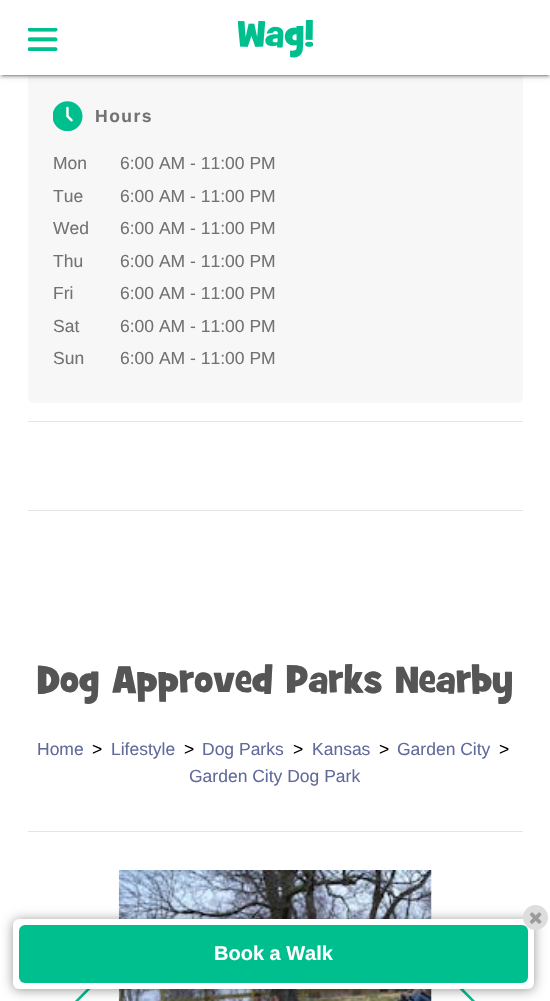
static SkFont makeFont(const char* family, int weight, float size, bool italic = false) {
  SkFontStyle style(weight, SkFontStyle::kNormal_Width,
    italic ? SkFontStyle::kItalic_Slant : SkFontStyle::kUpright_Slant);
  SkFont result(fontMgr->matchFamilyStyle(family, style), size);
  result.setSubpixel(true);
  return result;
}

static void text(SkCanvas* c, const char* s, float x, float y, const SkFont& font, SkColor color) {
  SkPaint ink(SkColor4f::FromColor(color));
  ink.setAntiAlias(true);
  c->drawString(s, x, y, font, ink);
}

static void spacedText(SkCanvas* c, const char* s, float x, float y, const SkFont& font, const SkPaint& ink, float letter, float word) {
  std::vector<SkGlyphID> glyphs(font.countText(s, strlen(s), SkTextEncoding::kUTF8));
  std::vector<float> xs(glyphs.size());
  font.textToGlyphs(s, strlen(s), SkTextEncoding::kUTF8, glyphs);
  font.getXPos(glyphs, xs, x);
  float extra = 0;
  for (size_t i = 0; i < glyphs.size(); i++) {
    xs[i] += extra;
    extra += letter + word * (glyphs[i] == font.unicharToGlyph(' '));
  }
  c->drawTextBlob(SkTextBlob::MakeFromPosHGlyphs(glyphs, xs, y, font), 0, 0, ink);
}

static void box(SkCanvas* c, float l, float t, float r, float b, SkColor color) {
  SkPaint ink(SkColor4f::FromColor(color));
  ink.setAntiAlias(true);
  c->drawRect(SkRect::MakeLTRB(l, t, r, b), ink);
}

static void roundBox(SkCanvas* c, float l, float t, float r, float b, float radius, SkColor color) {
  SkPaint ink(SkColor4f::FromColor(color));
  ink.setAntiAlias(true);
  c->drawRoundRect(SkRect::MakeLTRB(l, t, r, b), radius, radius, ink);
}

static void picture(SkCanvas* c, const char* path, float l, float t, float r, float b) {
  auto image = SkImages::DeferredFromEncodedData(SkData::MakeFromFileName(path));
  c->drawImageRect(image, SkRect::MakeLTRB(l, t, r, b), SkSamplingOptions());
}

void draw(SkCanvas* c) {
  SkPaint paint;
  paint.setAntiAlias(true);
  c->clear(0xffffffff);
  roundBox(c, 28, -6, 523, 403, 6, 0xfff7f7f8);
  paint.setColor(0x33000000);
  paint.setMaskFilter(SkMaskFilter::MakeBlur(kNormal_SkBlurStyle, 0.5f));
  c->drawRect(SkRect::MakeLTRB(3, 6, 548, 76), paint);
  paint.setMaskFilter(nullptr);
  paint.setColor(0x1f000000);
  paint.setMaskFilter(SkMaskFilter::MakeBlur(kNormal_SkBlurStyle, 3));
  c->drawRect(SkRect::MakeLTRB(0, 1, 550, 76), paint);
  paint.setMaskFilter(nullptr);
  paint.setColor(0x24000000);
  paint.setMaskFilter(SkMaskFilter::MakeBlur(kNormal_SkBlurStyle, 1));
  c->drawRect(SkRect::MakeLTRB(0, 3, 550, 78), paint);
  paint.setMaskFilter(nullptr);
  box(c, 0, 0, 550, 75, 0xffffffff);
  picture(c, "img_01.png", 28, 28, 58, 51);
  picture(c, "img_02.png", 238, 20, 313, 58);
  picture(c, "img_03.png", 53, 101, 83, 131);
  SkFont face1 = makeFont("Liberation Sans", 700, 17.5f);
  paint.setColor(0xff727272);
  spacedText(c, "Hours", 95, 122, face1, paint, 1.5f, 0);
  SkFont face2 = makeFont("Liberation Sans", 400, 17.5f);
  text(c, "Mon", 53, 169, face2, 0xff727272);
  text(c, "6:00 AM - 11:00 PM", 120, 169, face2, 0xff727272);
  text(c, "Tue", 53, 202, face2, 0xff727272);
  text(c, "6:00 AM - 11:00 PM", 120, 202, face2, 0xff727272);
  text(c, "Wed", 53, 234, face2, 0xff727272);
  text(c, "6:00 AM - 11:00 PM", 120, 234, face2, 0xff727272);
  text(c, "Thu", 53, 267, face2, 0xff727272);
  text(c, "6:00 AM - 11:00 PM", 120, 267, face2, 0xff727272);
  text(c, "Fri", 53, 299, face2, 0xff727272);
  text(c, "6:00 AM - 11:00 PM", 120, 299, face2, 0xff727272);
  text(c, "Sat", 53, 332, face2, 0xff727272);
  text(c, "6:00 AM - 11:00 PM", 120, 332, face2, 0xff727272);
  text(c, "Sun", 53, 364, face2, 0xff727272);
  text(c, "6:00 AM - 11:00 PM", 120, 364, face2, 0xff727272);
  box(c, 28, 421, 523, 422, 0xffe5e5e5);
  box(c, 28, 510, 523, 511, 0xffe5e5e5);
  SkFont face3 = makeFont("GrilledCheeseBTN", 400, 37.5f);
  text(c, "Dog Approved Parks Nearby", 37, 692, face3, 0xff555555);
  box(c, 28, 831, 523, 832, 0xffe5e5e5);
  text(c, "Home", 37, 755, face2, 0xff616a9b);
  paint.setColor(0xff000000);
  spacedText(c, ">", 92, 755, face2, paint, 4, 0);
  text(c, "Lifestyle", 111, 755, face2, 0xff616a9b);
  spacedText(c, ">", 184, 755, face2, paint, 4, 0);
  text(c, "Dog Parks", 202, 755, face2, 0xff616a9b);
  spacedText(c, ">", 293, 755, face2, paint, 4, 0);
  text(c, "Kansas", 312, 755, face2, 0xff616a9b);
  spacedText(c, ">", 379, 755, face2, paint, 4, 0);
  text(c, "Garden City", 397, 755, face2, 0xff616a9b);
  spacedText(c, ">", 499, 755, face2, paint, 4, 0);
  text(c, "Garden City Dog Park", 189, 782, face2, 0xff616a9b);
  paint.setColor(0xff00bf8f);
  c->drawPath(SkPathBuilder().moveTo(103, 976.5f).lineTo(74.5f, 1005).lineTo(73, 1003).lineTo(101, 974.5f).close().detach(), paint);
  picture(c, "img_04.png", 118, 870, 432, 1001);
  c->drawPath(SkPathBuilder().moveTo(447, 976.5f).lineTo(449, 974.5f).lineTo(477, 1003).lineTo(475.5f, 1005).close().detach(), paint);
  paint.setColor(0x69000000);
  paint.setMaskFilter(SkMaskFilter::MakeBlur(kNormal_SkBlurStyle, 6));
  c->drawRoundRect(SkRect::MakeLTRB(13, 920, 534, 990), 6, 6, paint);
  paint.setMaskFilter(nullptr);
  roundBox(c, 13, 919, 534, 989, 6, 0xffffffff);
  roundBox(c, 19, 925, 528, 983, 6, 0xff00bf8f);
  paint.setColor(0xffdddddd);
  c->drawCircle(535.5f, 917.5f, 12.5f, paint);
  picture(c, "img_05.png", 529, 912, 542, 924);
  SkFont face4 = makeFont("Liberation Sans", 700, 20);
  text(c, "Book a Walk", 214, 960, face4, 0xffffffff);
}
